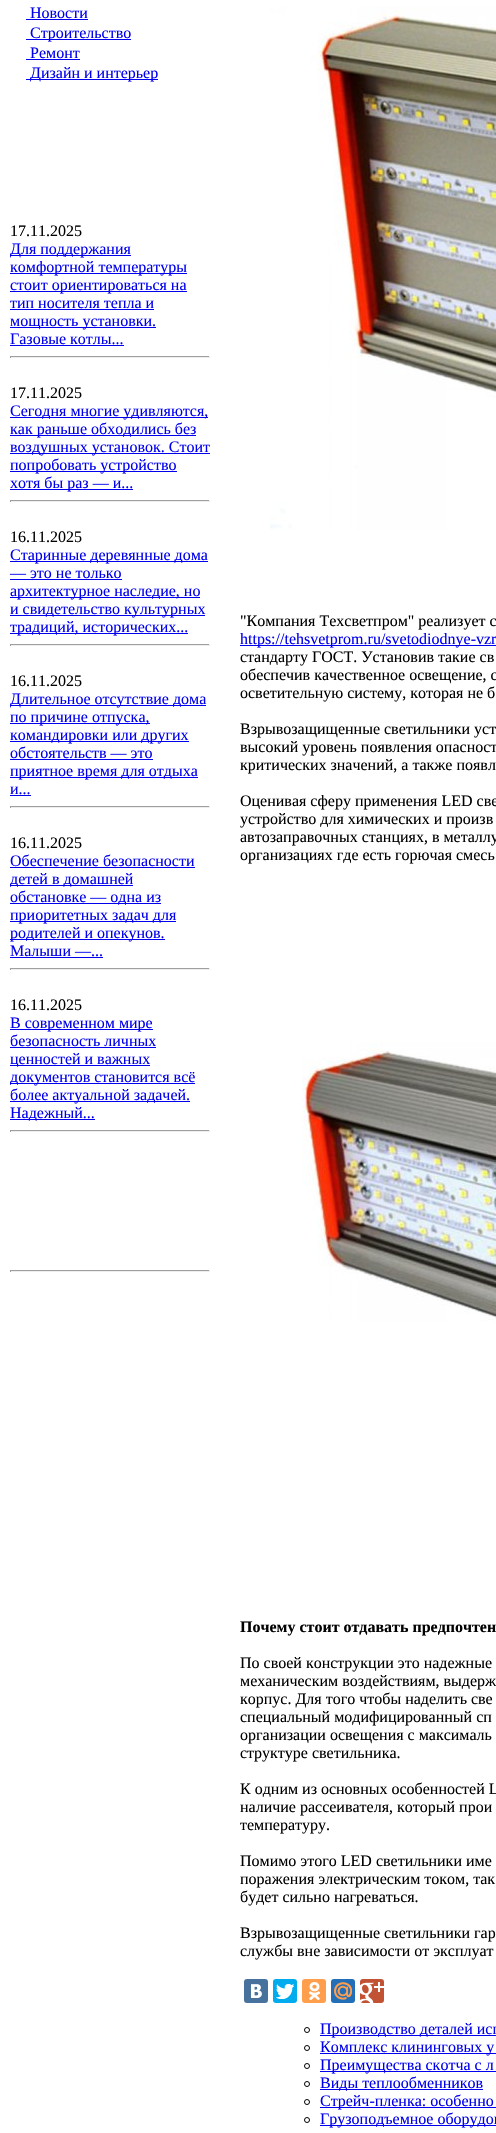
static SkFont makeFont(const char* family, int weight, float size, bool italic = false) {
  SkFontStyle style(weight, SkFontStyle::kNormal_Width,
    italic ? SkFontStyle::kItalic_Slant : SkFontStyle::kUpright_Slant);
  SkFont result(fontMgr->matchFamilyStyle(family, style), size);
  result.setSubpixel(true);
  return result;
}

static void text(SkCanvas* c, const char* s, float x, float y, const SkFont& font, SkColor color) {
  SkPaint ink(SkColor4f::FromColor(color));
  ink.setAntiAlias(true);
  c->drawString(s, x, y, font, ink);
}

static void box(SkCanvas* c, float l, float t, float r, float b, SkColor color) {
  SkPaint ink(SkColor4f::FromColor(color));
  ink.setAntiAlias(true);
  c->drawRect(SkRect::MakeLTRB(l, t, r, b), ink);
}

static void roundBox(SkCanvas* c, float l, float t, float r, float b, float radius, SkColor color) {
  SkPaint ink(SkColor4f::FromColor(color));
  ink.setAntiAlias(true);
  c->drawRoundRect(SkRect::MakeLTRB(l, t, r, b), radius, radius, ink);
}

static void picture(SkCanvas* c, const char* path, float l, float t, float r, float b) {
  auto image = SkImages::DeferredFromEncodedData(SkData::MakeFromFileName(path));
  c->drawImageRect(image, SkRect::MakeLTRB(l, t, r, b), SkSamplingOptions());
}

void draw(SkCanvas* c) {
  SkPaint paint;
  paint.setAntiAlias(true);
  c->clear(0xffffffff);
  SkFont face1 = makeFont("Liberation Serif", 400, 16);
  text(c, "Новости", 30, 18, face1, 0xff0000ee);
  box(c, 26, 19, 88, 20, 0xff0000ee);
  box(c, 26, 39, 131, 40, 0xff0000ee);
  text(c, "Строительство", 30, 38, face1, 0xff0000ee);
  text(c, "Ремонт", 30, 58, face1, 0xff0000ee);
  box(c, 26, 59, 80, 60, 0xff0000ee);
  box(c, 26, 79, 158, 80, 0xff0000ee);
  text(c, "Дизайн и интерьер", 30, 78, face1, 0xff0000ee);
  text(c, "17.11.2025", 10, 236, face1, 0xff000000);
  box(c, 10, 255, 131, 256, 0xff0000ee);
  text(c, "Для поддержания", 10, 254, face1, 0xff0000ee);
  box(c, 10, 273, 187, 274, 0xff0000ee);
  text(c, "комфортной температуры", 10, 272, face1, 0xff0000ee);
  box(c, 10, 291, 187, 292, 0xff0000ee);
  text(c, "стоит ориентироваться на", 10, 290, face1, 0xff0000ee);
  text(c, "тип носителя тепла и", 10, 308, face1, 0xff0000ee);
  box(c, 10, 309, 154, 310, 0xff0000ee);
  box(c, 10, 327, 156, 328, 0xff0000ee);
  text(c, "мощность установки.", 10, 326, face1, 0xff0000ee);
  text(c, "Газовые котлы...", 10, 344, face1, 0xff0000ee);
  box(c, 10, 345, 124, 346, 0xff0000ee);
  box(c, 10, 356, 210, 357, 0xff9f9f9f);
  box(c, 209, 356, 210, 358, 0xffeeeeee);
  box(c, 10, 357, 210, 358, 0xffeeeeee);
  box(c, 10, 356, 11, 358, 0xff9f9f9f);
  text(c, "17.11.2025", 10, 398, face1, 0xff000000);
  box(c, 10, 417, 208, 418, 0xff0000ee);
  text(c, "Сегодня многие удивляются,", 10, 416, face1, 0xff0000ee);
  box(c, 10, 435, 196, 436, 0xff0000ee);
  text(c, "как раньше обходились без", 10, 434, face1, 0xff0000ee);
  box(c, 10, 453, 210, 454, 0xff0000ee);
  text(c, "воздушных установок. Стоит", 10, 452, face1, 0xff0000ee);
  box(c, 10, 471, 177, 472, 0xff0000ee);
  text(c, "попробовать устройство", 10, 470, face1, 0xff0000ee);
  box(c, 10, 489, 133, 490, 0xff0000ee);
  text(c, "хотя бы раз — и...", 10, 488, face1, 0xff0000ee);
  box(c, 10, 500, 210, 501, 0xff9f9f9f);
  box(c, 209, 500, 210, 502, 0xffeeeeee);
  box(c, 10, 501, 210, 502, 0xffeeeeee);
  box(c, 10, 500, 11, 502, 0xff9f9f9f);
  text(c, "16.11.2025", 10, 542, face1, 0xff000000);
  box(c, 10, 561, 208, 562, 0xff0000ee);
  text(c, "Старинные деревянные дома", 10, 560, face1, 0xff0000ee);
  text(c, "— это не только", 10, 578, face1, 0xff0000ee);
  box(c, 10, 579, 122, 580, 0xff0000ee);
  box(c, 10, 597, 200, 598, 0xff0000ee);
  text(c, "архитектурное наследие, но", 10, 596, face1, 0xff0000ee);
  box(c, 10, 615, 205, 616, 0xff0000ee);
  text(c, "и свидетельство культурных", 10, 614, face1, 0xff0000ee);
  box(c, 10, 633, 188, 634, 0xff0000ee);
  text(c, "традиций, исторических...", 10, 632, face1, 0xff0000ee);
  box(c, 10, 644, 210, 645, 0xff9f9f9f);
  box(c, 209, 644, 210, 646, 0xffeeeeee);
  box(c, 10, 645, 210, 646, 0xffeeeeee);
  box(c, 10, 644, 11, 646, 0xff9f9f9f);
  text(c, "16.11.2025", 10, 686, face1, 0xff000000);
  box(c, 10, 705, 206, 706, 0xff0000ee);
  text(c, "Длительное отсутствие дома", 10, 704, face1, 0xff0000ee);
  box(c, 10, 723, 150, 724, 0xff0000ee);
  text(c, "по причине отпуска,", 10, 722, face1, 0xff0000ee);
  box(c, 10, 741, 189, 742, 0xff0000ee);
  text(c, "командировки или других", 10, 740, face1, 0xff0000ee);
  text(c, "обстоятельств — это", 10, 758, face1, 0xff0000ee);
  box(c, 10, 759, 153, 760, 0xff0000ee);
  box(c, 10, 777, 198, 778, 0xff0000ee);
  text(c, "приятное время для отдыха", 10, 776, face1, 0xff0000ee);
  text(c, "и...", 10, 794, face1, 0xff0000ee);
  box(c, 10, 795, 31, 796, 0xff0000ee);
  box(c, 10, 806, 210, 807, 0xff9f9f9f);
  box(c, 209, 806, 210, 808, 0xffeeeeee);
  box(c, 10, 807, 210, 808, 0xffeeeeee);
  box(c, 10, 806, 11, 808, 0xff9f9f9f);
  text(c, "16.11.2025", 10, 848, face1, 0xff000000);
  text(c, "Обеспечение безопасности", 10, 866, face1, 0xff0000ee);
  box(c, 10, 867, 195, 868, 0xff0000ee);
  box(c, 10, 885, 133, 886, 0xff0000ee);
  text(c, "детей в домашней", 10, 884, face1, 0xff0000ee);
  box(c, 10, 903, 161, 904, 0xff0000ee);
  text(c, "обстановке — одна из", 10, 902, face1, 0xff0000ee);
  box(c, 10, 921, 176, 922, 0xff0000ee);
  text(c, "приоритетных задач для", 10, 920, face1, 0xff0000ee);
  box(c, 10, 939, 165, 940, 0xff0000ee);
  text(c, "родителей и опекунов.", 10, 938, face1, 0xff0000ee);
  text(c, "Малыши —...", 10, 956, face1, 0xff0000ee);
  box(c, 10, 957, 103, 958, 0xff0000ee);
  box(c, 10, 968, 210, 969, 0xff9f9f9f);
  box(c, 209, 968, 210, 970, 0xffeeeeee);
  box(c, 10, 969, 210, 970, 0xffeeeeee);
  box(c, 10, 968, 11, 970, 0xff9f9f9f);
  text(c, "16.11.2025", 10, 1010, face1, 0xff000000);
  box(c, 10, 1029, 153, 1030, 0xff0000ee);
  text(c, "В современном мире", 10, 1028, face1, 0xff0000ee);
  text(c, "безопасность личных", 10, 1046, face1, 0xff0000ee);
  box(c, 10, 1047, 156, 1048, 0xff0000ee);
  box(c, 10, 1065, 150, 1066, 0xff0000ee);
  text(c, "ценностей и важных", 10, 1064, face1, 0xff0000ee);
  box(c, 10, 1083, 195, 1084, 0xff0000ee);
  text(c, "документов становится всё", 10, 1082, face1, 0xff0000ee);
  box(c, 10, 1101, 190, 1102, 0xff0000ee);
  text(c, "более актуальной задачей.", 10, 1100, face1, 0xff0000ee);
  box(c, 10, 1119, 95, 1120, 0xff0000ee);
  text(c, "Надежный...", 10, 1118, face1, 0xff0000ee);
  box(c, 10, 1130, 210, 1131, 0xff9f9f9f);
  box(c, 209, 1130, 210, 1132, 0xffeeeeee);
  box(c, 10, 1131, 210, 1132, 0xffeeeeee);
  box(c, 10, 1130, 11, 1132, 0xff9f9f9f);
  box(c, 10, 1270, 210, 1271, 0xff9f9f9f);
  box(c, 209, 1270, 210, 1272, 0xffeeeeee);
  box(c, 10, 1271, 210, 1272, 0xffeeeeee);
  box(c, 10, 1270, 11, 1272, 0xff9f9f9f);
  picture(c, "img_01.png", 270, 7, 496, 530);
  text(c, "\"Компания Техсветпром\" реализует с", 240, 626, face1, 0xff000000);
  box(c, 240, 645, 496, 646, 0xff0000ee);
  text(c, "https://tehsvetprom.ru/svetodiodnye-vzr", 240, 644, face1, 0xff0000ee);
  text(c, "стандарту ГОСТ. Установив такие св", 240, 662, face1, 0xff000000);
  text(c, "обеспечив качественное освещение, с", 240, 680, face1, 0xff000000);
  text(c, "осветительную систему, которая не б", 240, 698, face1, 0xff000000);
  text(c, "Взрывозащищенные светильники уст", 240, 734, face1, 0xff000000);
  text(c, "высокий уровень появления опасност", 240, 752, face1, 0xff000000);
  text(c, "критических значений, а также появл", 240, 770, face1, 0xff000000);
  text(c, "Оценивая сферу применения LED све", 240, 806, face1, 0xff000000);
  text(c, "устройство для химических и произв", 240, 824, face1, 0xff000000);
  text(c, "автозаправочных станциях, в металлу", 240, 842, face1, 0xff000000);
  text(c, "организациях где есть горючая смесь", 240, 860, face1, 0xff000000);
  picture(c, "img_02.png", 302, 1042, 496, 1321);
  SkFont face2 = makeFont("Liberation Serif", 700, 16);
  text(c, "Почему стоит отдавать предпочтен", 240, 1632, face2, 0xff000000);
  text(c, "По своей конструкции это надежные", 240, 1668, face1, 0xff000000);
  text(c, "механическим воздействиям, выдерж", 240, 1686, face1, 0xff000000);
  text(c, "корпус. Для того чтобы наделить све", 240, 1704, face1, 0xff000000);
  text(c, "специальный модифицированный сп", 240, 1722, face1, 0xff000000);
  text(c, "организации освещения с максималь", 240, 1740, face1, 0xff000000);
  text(c, "структуре светильника.", 240, 1758, face1, 0xff000000);
  text(c, "К одним из основных особенностей L", 240, 1794, face1, 0xff000000);
  text(c, "наличие рассеивателя, который прои", 240, 1812, face1, 0xff000000);
  text(c, "температуру.", 240, 1830, face1, 0xff000000);
  text(c, "Помимо этого LED светильники име", 240, 1866, face1, 0xff000000);
  text(c, "поражения электрическим током, так", 240, 1884, face1, 0xff000000);
  text(c, "будет сильно нагреваться.", 240, 1902, face1, 0xff000000);
  text(c, "Взрывозащищенные светильники гар", 240, 1938, face1, 0xff000000);
  text(c, "службы вне зависимости от эксплуат", 240, 1956, face1, 0xff000000);
  roundBox(c, 244, 1979, 268, 2003, 3, 0xff48729e);
  picture(c, "img_03.png", 251, 1984, 262, 1998);
  roundBox(c, 273, 1979, 297, 2003, 3, 0xff00aced);
  picture(c, "img_04.png", 276, 1984, 294, 1999);
  roundBox(c, 302, 1979, 326, 2003, 3, 0xffff9f4d);
  picture(c, "img_05.png", 309, 1982, 320, 2000);
  roundBox(c, 331, 1979, 355, 2003, 3, 0xff226eb7);
  picture(c, "img_06.png", 334, 1982, 352, 2000);
  roundBox(c, 360, 1979, 384, 2003, 3, 0xffc25234);
  picture(c, "img_07.png", 360, 1982, 384, 2003);
  paint.setStyle(SkPaint::kStroke_Style);
  paint.setStrokeWidth(1);
  paint.setColor(0xff000000);
  c->drawCircle(307, 2030, 2.5f, paint);
  box(c, 320, 2035, 496, 2036, 0xff0000ee);
  text(c, "Производство деталей исп", 320, 2034, face1, 0xff0000ee);
  c->drawCircle(307, 2048, 2.5f, paint);
  box(c, 320, 2053, 496, 2054, 0xff0000ee);
  text(c, "Комплекс клининговых у", 320, 2052, face1, 0xff0000ee);
  c->drawCircle(307, 2066, 2.5f, paint);
  box(c, 320, 2071, 496, 2072, 0xff0000ee);
  text(c, "Преимущества скотча с л", 320, 2070, face1, 0xff0000ee);
  c->drawCircle(307, 2084, 2.5f, paint);
  box(c, 320, 2089, 483, 2090, 0xff0000ee);
  text(c, "Виды теплообменников", 320, 2088, face1, 0xff0000ee);
  c->drawCircle(307, 2102, 2.5f, paint);
  box(c, 320, 2107, 496, 2108, 0xff0000ee);
  text(c, "Стрейч-пленка: особенно", 320, 2106, face1, 0xff0000ee);
  c->drawCircle(307, 2120, 2.5f, paint);
  box(c, 320, 2125, 496, 2126, 0xff0000ee);
  text(c, "Грузоподъемное оборудов", 320, 2124, face1, 0xff0000ee);
}
